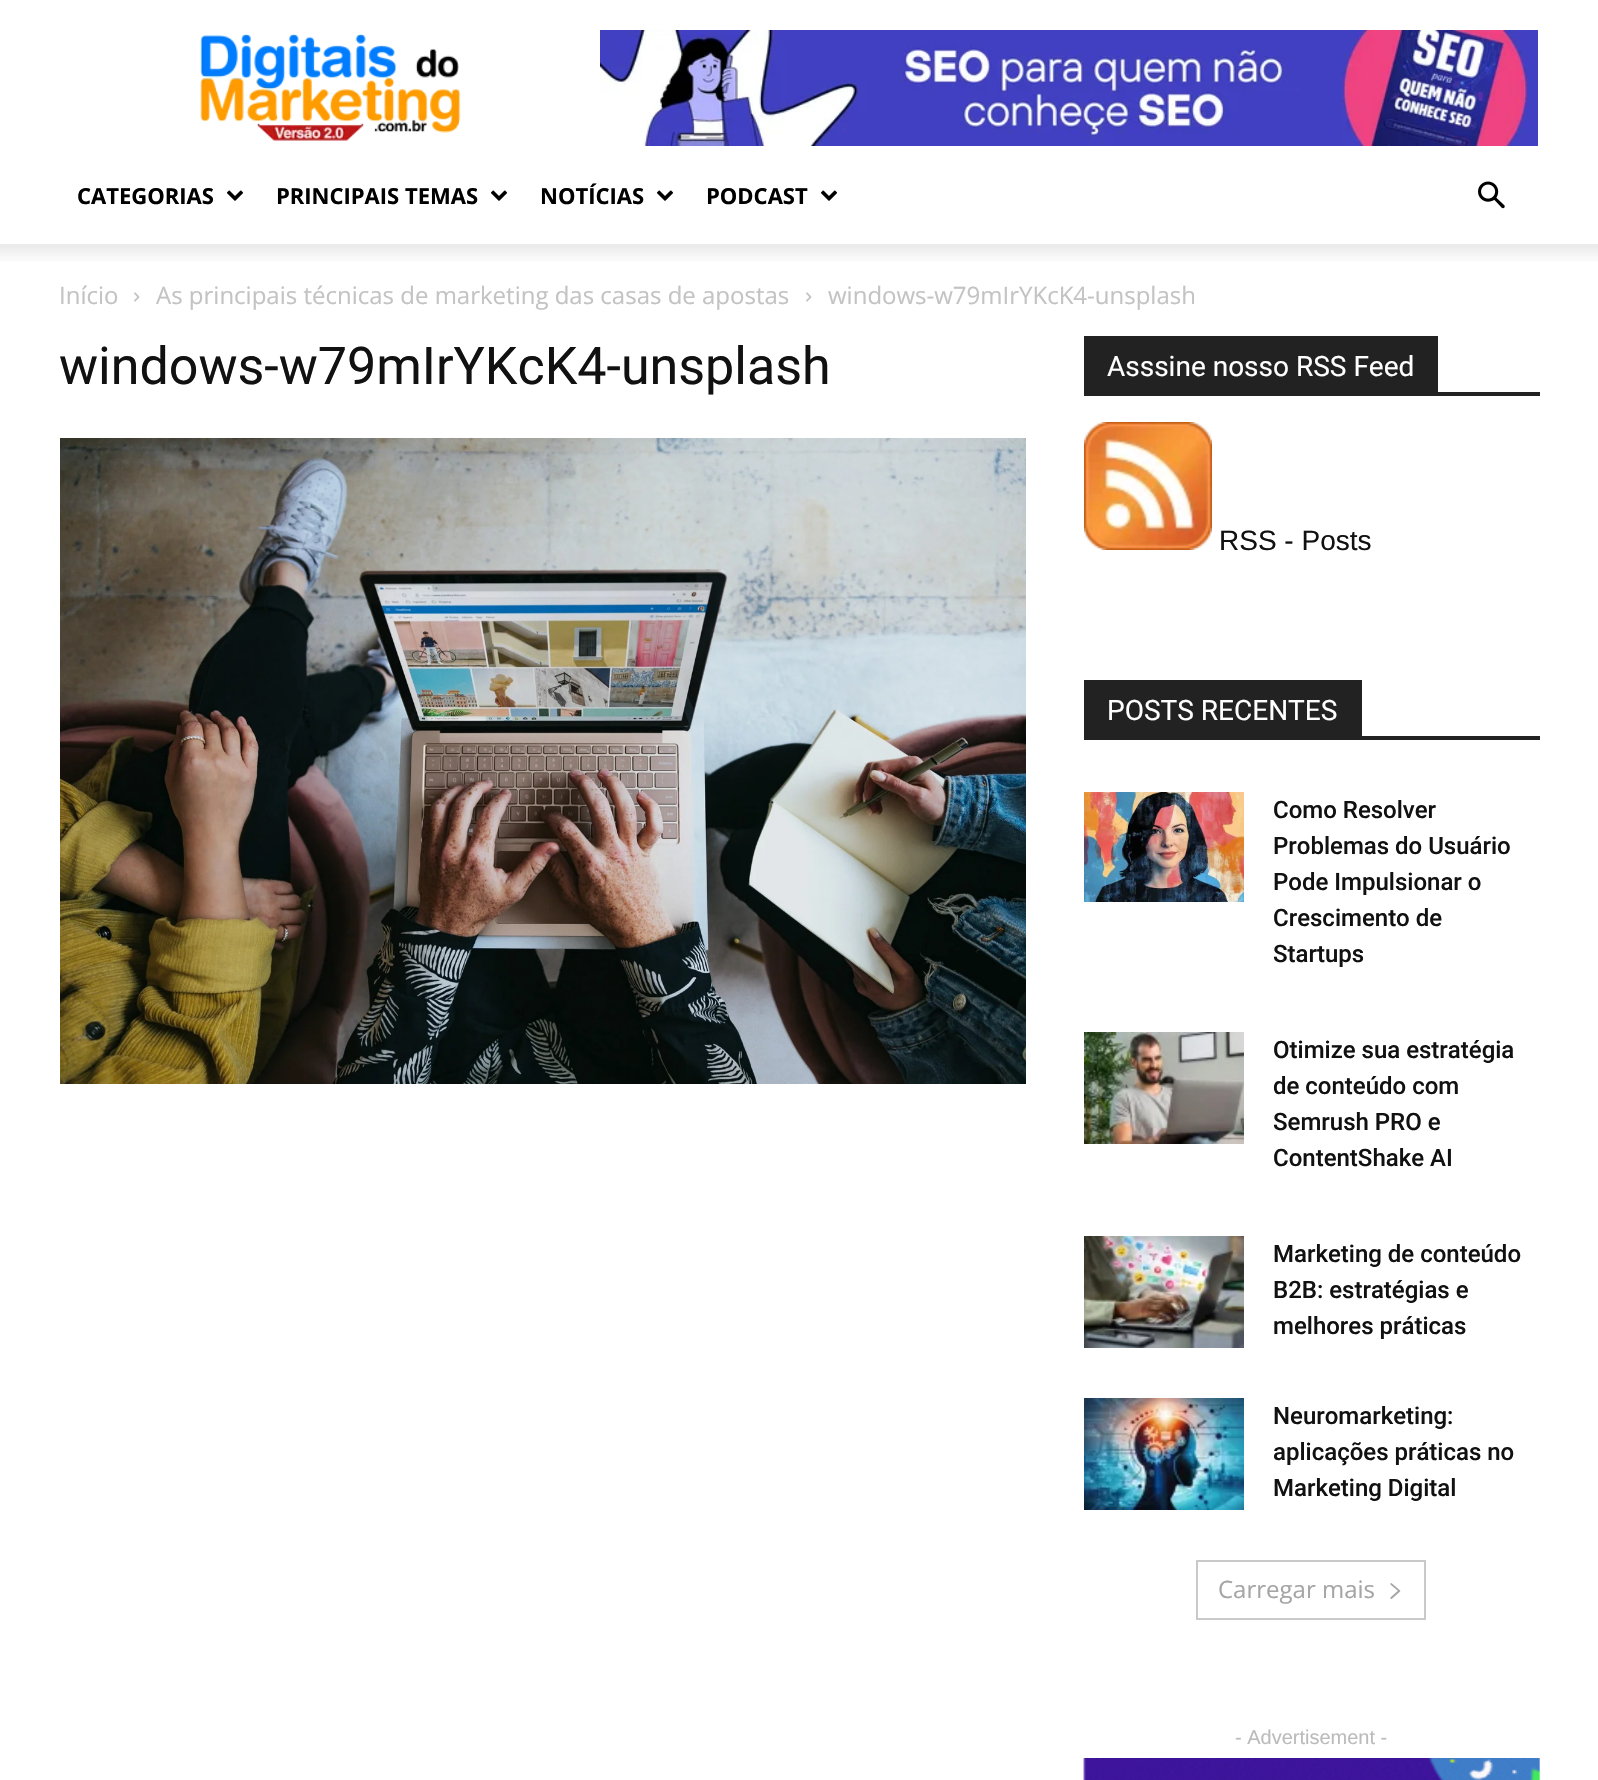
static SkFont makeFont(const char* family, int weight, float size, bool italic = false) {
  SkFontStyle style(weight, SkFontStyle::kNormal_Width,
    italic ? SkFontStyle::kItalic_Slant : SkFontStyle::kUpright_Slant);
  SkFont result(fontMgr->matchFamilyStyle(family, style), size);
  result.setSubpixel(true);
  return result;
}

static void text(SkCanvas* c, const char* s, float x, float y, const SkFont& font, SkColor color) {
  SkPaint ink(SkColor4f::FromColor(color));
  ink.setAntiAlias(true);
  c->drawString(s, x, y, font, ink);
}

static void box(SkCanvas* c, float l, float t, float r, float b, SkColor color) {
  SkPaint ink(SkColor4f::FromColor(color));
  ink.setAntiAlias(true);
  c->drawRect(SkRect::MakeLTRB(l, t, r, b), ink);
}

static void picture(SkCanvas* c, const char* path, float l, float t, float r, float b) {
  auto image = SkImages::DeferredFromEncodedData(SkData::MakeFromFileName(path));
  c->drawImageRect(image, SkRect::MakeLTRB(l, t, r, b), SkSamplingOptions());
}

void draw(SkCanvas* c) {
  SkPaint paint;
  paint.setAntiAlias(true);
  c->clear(0xffffffff);
  picture(c, "img_01.png", 200, 34, 461, 141);
  picture(c, "img_02.png", 600, 30, 1538, 146);
  SkFont face1 = makeFont("Open Sans", 700, 22);
  text(c, "CATEGORIAS", 77, 204, face1, 0xff000000);
  picture(c, "img_03.png", 226, 190, 244, 201);
  text(c, "PRINCIPAIS TEMAS", 276, 204, face1, 0xff000000);
  picture(c, "img_03.png", 490, 190, 508, 201);
  text(c, "NOTÍCIAS", 540, 204, face1, 0xff000000);
  picture(c, "img_03.png", 656, 190, 674, 201);
  text(c, "PODCAST", 706, 204, face1, 0xff000000);
  picture(c, "img_03.png", 820, 190, 838, 201);
  picture(c, "img_04.png", 1478, 181, 1505, 209);
  picture(c, "img_05.png", 0, 244, 1598, 261);
  SkFont face2 = makeFont("Open Sans", 400, 24);
  text(c, "Início", 59, 304, face2, 0xffc3c3c3);
  picture(c, "img_06.png", 134, 292, 140, 302);
  text(c, "As principais técnicas de marketing das casas de apostas", 156, 304, face2, 0xffc3c3c3);
  picture(c, "img_06.png", 806, 292, 812, 302);
  text(c, "windows-w79mIrYKcK4-unsplash", 828, 304, face2, 0xffc3c3c3);
  SkFont face3 = makeFont("Roboto", 400, 52);
  text(c, "windows-w79mIrYKcK4-unsplash", 59, 384, face3, 0xff111111);
  picture(c, "img_07.png", 60, 438, 1026, 1084);
  box(c, 1084, 392, 1540, 396, 0xff222222);
  box(c, 1084, 336, 1438, 392, 0xff222222);
  SkFont face4 = makeFont("Roboto", 400, 28);
  text(c, "Asssine nosso RSS Feed", 1107, 376, face4, 0xffffffff);
  picture(c, "img_08.png", 1084, 422, 1212, 550);
  SkFont face5 = makeFont("Liberation Sans", 400, 28);
  text(c, "RSS - Posts", 1219, 550, face5, 0xff111111);
  box(c, 1084, 736, 1540, 740, 0xff222222);
  box(c, 1084, 680, 1362, 736, 0xff222222);
  text(c, "POSTS RECENTES", 1107, 720, face4, 0xffffffff);
  picture(c, "img_09.png", 1084, 792, 1244, 902);
  SkFont face6 = makeFont("Roboto", 500, 24);
  text(c, "Como Resolver", 1273, 818, face6, 0xff111111);
  text(c, "Problemas do Usuário", 1273, 854, face6, 0xff111111);
  text(c, "Pode Impulsionar o", 1273, 890, face6, 0xff111111);
  text(c, "Crescimento de", 1273, 926, face6, 0xff111111);
  text(c, "Startups", 1273, 962, face6, 0xff111111);
  picture(c, "img_10.png", 1084, 1032, 1244, 1144);
  text(c, "Otimize sua estratégia", 1273, 1058, face6, 0xff111111);
  text(c, "de conteúdo com", 1273, 1094, face6, 0xff111111);
  text(c, "Semrush PRO e", 1273, 1130, face6, 0xff111111);
  text(c, "ContentShake AI", 1273, 1166, face6, 0xff111111);
  picture(c, "img_11.png", 1084, 1236, 1244, 1348);
  text(c, "Marketing de conteúdo", 1273, 1262, face6, 0xff111111);
  text(c, "B2B: estratégias e", 1273, 1298, face6, 0xff111111);
  text(c, "melhores práticas", 1273, 1334, face6, 0xff111111);
  picture(c, "img_12.png", 1084, 1398, 1244, 1510);
  text(c, "Neuromarketing:", 1273, 1424, face6, 0xff111111);
  text(c, "aplicações práticas no", 1273, 1460, face6, 0xff111111);
  text(c, "Marketing Digital", 1273, 1496, face6, 0xff111111);
  paint.setStyle(SkPaint::kStroke_Style);
  paint.setStrokeWidth(2);
  paint.setColor(0xffc9c9c9);
  c->drawRect(SkRect::MakeLTRB(1197, 1561, 1425, 1619), paint);
  text(c, "Carregar mais", 1218, 1598, face2, 0xffa5a5a5);
  picture(c, "img_13.png", 1390, 1583, 1401, 1599);
  SkFont face7 = makeFont("Liberation Sans", 400, 20);
  text(c, "- Advertisement -", 1235, 1744, face7, 0xffbbbbbb);
  picture(c, "img_14.png", 1083, 1758, 1540, 1780);
}
